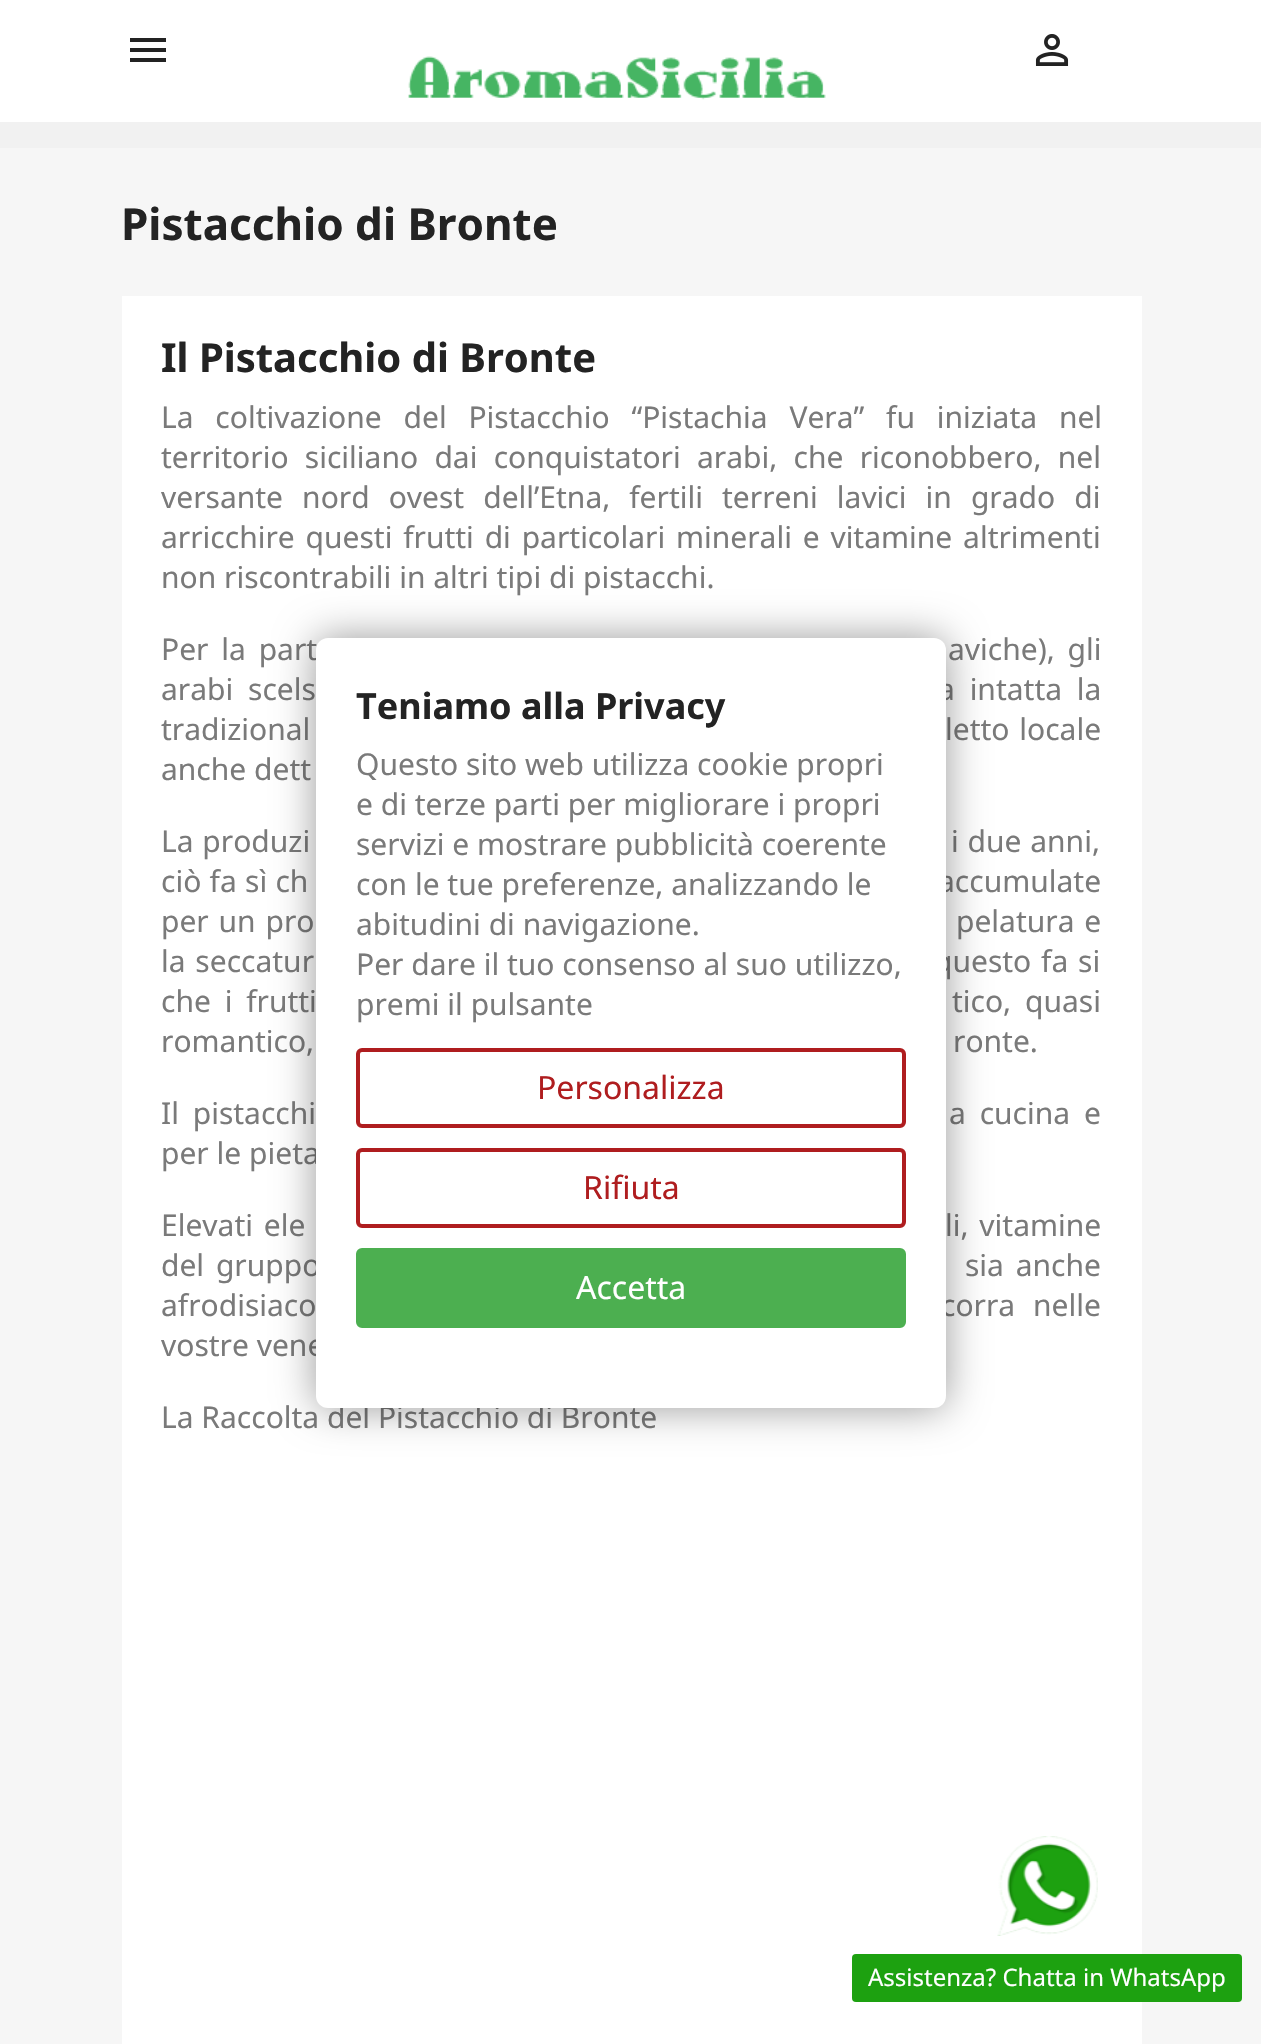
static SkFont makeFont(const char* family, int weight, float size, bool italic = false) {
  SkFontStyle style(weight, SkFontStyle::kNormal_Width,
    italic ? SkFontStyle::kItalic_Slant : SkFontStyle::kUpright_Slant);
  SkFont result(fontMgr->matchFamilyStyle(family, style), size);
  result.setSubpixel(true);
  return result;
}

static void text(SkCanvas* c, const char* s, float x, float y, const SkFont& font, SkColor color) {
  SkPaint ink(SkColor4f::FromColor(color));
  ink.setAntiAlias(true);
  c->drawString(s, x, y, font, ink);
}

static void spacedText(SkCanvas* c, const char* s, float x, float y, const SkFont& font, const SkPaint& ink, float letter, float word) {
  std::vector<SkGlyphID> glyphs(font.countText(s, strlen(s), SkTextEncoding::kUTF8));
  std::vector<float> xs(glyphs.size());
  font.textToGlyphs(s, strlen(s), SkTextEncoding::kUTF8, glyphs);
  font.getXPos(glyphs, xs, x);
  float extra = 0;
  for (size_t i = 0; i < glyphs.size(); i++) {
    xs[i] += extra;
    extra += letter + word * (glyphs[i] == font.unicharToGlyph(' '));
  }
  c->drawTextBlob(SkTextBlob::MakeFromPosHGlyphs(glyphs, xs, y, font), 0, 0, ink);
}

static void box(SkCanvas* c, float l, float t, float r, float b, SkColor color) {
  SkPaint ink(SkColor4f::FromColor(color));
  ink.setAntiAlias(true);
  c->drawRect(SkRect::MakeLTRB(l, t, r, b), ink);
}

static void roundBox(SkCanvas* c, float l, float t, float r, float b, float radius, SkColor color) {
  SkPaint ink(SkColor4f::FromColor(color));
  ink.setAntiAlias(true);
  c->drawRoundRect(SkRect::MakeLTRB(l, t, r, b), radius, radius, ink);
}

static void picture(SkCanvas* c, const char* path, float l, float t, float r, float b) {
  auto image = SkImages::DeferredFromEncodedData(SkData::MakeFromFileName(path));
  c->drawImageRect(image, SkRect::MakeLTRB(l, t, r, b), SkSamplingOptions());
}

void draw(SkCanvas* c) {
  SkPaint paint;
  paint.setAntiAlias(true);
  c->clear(0xfff1f1f1);
  box(c, 0, 0, 1261, 122, 0xffffffff);
  paint.setColor(0xff232323);
  c->drawPath(SkPathBuilder().moveTo(130, 38).lineTo(166, 38).lineTo(166, 42).lineTo(130, 42).close().moveTo(130, 52).lineTo(130, 48).lineTo(166, 48).lineTo(166, 52).close().moveTo(130, 62).lineTo(130, 58).lineTo(166, 58).lineTo(166, 62).close().detach(), paint);
  picture(c, "img_01.png", 1035, 34, 1069, 66);
  picture(c, "img_02.png", 408, 56, 826, 100);
  box(c, 0, 148, 1261, 2044, 0xfff6f6f6);
  SkFont face1 = makeFont("Noto Sans", 700, 44);
  text(c, "Pistacchio di Bronte", 121, 240, face1, 0xff232323);
  box(c, 122, 296, 1142, 2044, 0xffffffff);
  SkFont face2 = makeFont("Noto Sans", 700, 40);
  text(c, "Il Pistacchio di Bronte", 161, 372, face2, 0xff232323);
  SkFont face3 = makeFont("Noto Sans", 400, 30);
  paint.setColor(0xff7a7a7a);
  spacedText(c, "La coltivazione del Pistacchio “Pistachia Vera” fu iniziata nel", 161, 428, face3, paint, 0, 14);
  spacedText(c, "territorio siciliano dai conquistatori arabi, che riconobbero, nel", 161, 468, face3, paint, 0, 8.5f);
  spacedText(c, "versante nord ovest dell’Etna, fertili terreni lavici in grado di", 161, 508, face3, paint, 0, 11.25f);
  spacedText(c, "arricchire questi frutti di particolari minerali e vitamine altrimenti", 161, 548, face3, paint, 0, 3);
  text(c, "non riscontrabili in altri tipi di pistacchi.", 161, 588, face3, 0xff7a7a7a);
  spacedText(c, "Per la part", 161, 660, face3, paint, 0, 5);
  spacedText(c, "aviche), gli", 948, 660, face3, paint, 0, 5);
  spacedText(c, "arabi scels", 161, 700, face3, paint, 0, 7);
  spacedText(c, "a intatta la", 938, 700, face3, paint, 0, 7);
  spacedText(c, "tradizional", 161, 740, face3, paint, 0, 2);
  spacedText(c, "letto locale", 945, 740, face3, paint, 0, 2);
  text(c, "anche dett", 161, 780, face3, 0xff7a7a7a);
  spacedText(c, "La produzi", 161, 852, face3, paint, 0, 1);
  spacedText(c, "i due anni,", 951, 852, face3, paint, 0, 1);
  spacedText(c, "ciò fa sì ch", 161, 892, face3, paint, 0, 0.5f);
  spacedText(c, "accumulate", 938, 892, face3, paint, 0, 0.5f);
  spacedText(c, "per un pro", 161, 932, face3, paint, 0, 2);
  spacedText(c, "pelatura e", 956, 932, face3, paint, 0, 2);
  spacedText(c, "la seccatur", 161, 972, face3, paint, 0, 2);
  spacedText(c, "questo fa si", 934, 972, face3, paint, 0, 2);
  spacedText(c, "che i frutti", 161, 1012, face3, paint, 0, 6);
  spacedText(c, "tico, quasi", 952, 1012, face3, paint, 0, 6);
  text(c, "romantico,", 161, 1052, face3, 0xff7a7a7a);
  text(c, "ronte.", 953, 1052, face3, 0xff7a7a7a);
  spacedText(c, "Il pistacchi", 161, 1124, face3, paint, 0, 6);
  spacedText(c, "a cucina e", 949, 1124, face3, paint, 0, 6);
  text(c, "per le pieta", 161, 1164, face3, 0xff7a7a7a);
  spacedText(c, "Elevati ele", 161, 1236, face3, paint, 0, 3);
  spacedText(c, "li, vitamine", 945, 1236, face3, paint, 0, 3);
  spacedText(c, "del gruppo", 161, 1276, face3, paint, 0, 4);
  spacedText(c, "sia anche", 965, 1276, face3, paint, 0, 4);
  spacedText(c, "afrodisiaco", 161, 1316, face3, paint, 0, 10);
  spacedText(c, "corra nelle", 941, 1316, face3, paint, 0, 10);
  text(c, "vostre vene", 161, 1356, face3, 0xff7a7a7a);
  text(c, "La Raccolta del Pistacchio di Bronte", 161, 1428, face3, 0xff7a7a7a);
  picture(c, "img_03.png", 997, 1836, 1098, 1936);
  roundBox(c, 852, 1954, 1242, 2002, 4, 0xff1da110);
  SkFont face4 = makeFont("Noto Sans", 400, 24);
  text(c, "Assistenza? Chatta in WhatsApp", 868, 1986, face4, 0xffffffff);
  paint.setColor(0x66000000);
  paint.setMaskFilter(SkMaskFilter::MakeBlur(kNormal_SkBlurStyle, 20));
  c->drawRoundRect(SkRect::MakeLTRB(316, 638, 946, 1408), 12, 12, paint);
  paint.setMaskFilter(nullptr);
  roundBox(c, 316, 638, 946, 1408, 12, 0xffffffff);
  SkFont face5 = makeFont("Noto Sans", 700, 36);
  text(c, "Teniamo alla Privacy", 356, 719, face5, 0xff232323);
  text(c, "Questo sito web utilizza cookie propri", 356, 775, face3, 0xff7a7a7a);
  text(c, "e di terze parti per migliorare i propri", 356, 815, face3, 0xff7a7a7a);
  text(c, "servizi e mostrare pubblicità coerente", 356, 855, face3, 0xff7a7a7a);
  text(c, "con le tue preferenze, analizzando le", 356, 895, face3, 0xff7a7a7a);
  text(c, "abitudini di navigazione.", 356, 935, face3, 0xff7a7a7a);
  text(c, "Per dare il tuo consenso al suo utilizzo,", 356, 975, face3, 0xff7a7a7a);
  text(c, "premi il pulsante", 356, 1015, face3, 0xff7a7a7a);
  paint.setStyle(SkPaint::kStroke_Style);
  paint.setStrokeWidth(4);
  paint.setColor(0xffaf1d1f);
  c->drawRoundRect(SkRect::MakeLTRB(358, 1050, 904, 1126), 4, 4, paint);
  SkFont face6 = makeFont("Noto Sans", 400, 32);
  text(c, "Personalizza", 537, 1099, face6, 0xffaf1d1f);
  c->drawRoundRect(SkRect::MakeLTRB(358, 1150, 904, 1226), 4, 4, paint);
  text(c, "Rifiuta", 583, 1199, face6, 0xffaf1d1f);
  paint.setStyle(SkPaint::kFill_Style);
  paint.setColor(0xff4caf50);
  c->drawRoundRect(SkRect::MakeLTRB(358, 1250, 904, 1326), 4, 4, paint);
  paint.setStyle(SkPaint::kStroke_Style);
  c->drawRoundRect(SkRect::MakeLTRB(358, 1250, 904, 1326), 4, 4, paint);
  text(c, "Accetta", 576, 1299, face6, 0xffffffff);
}
